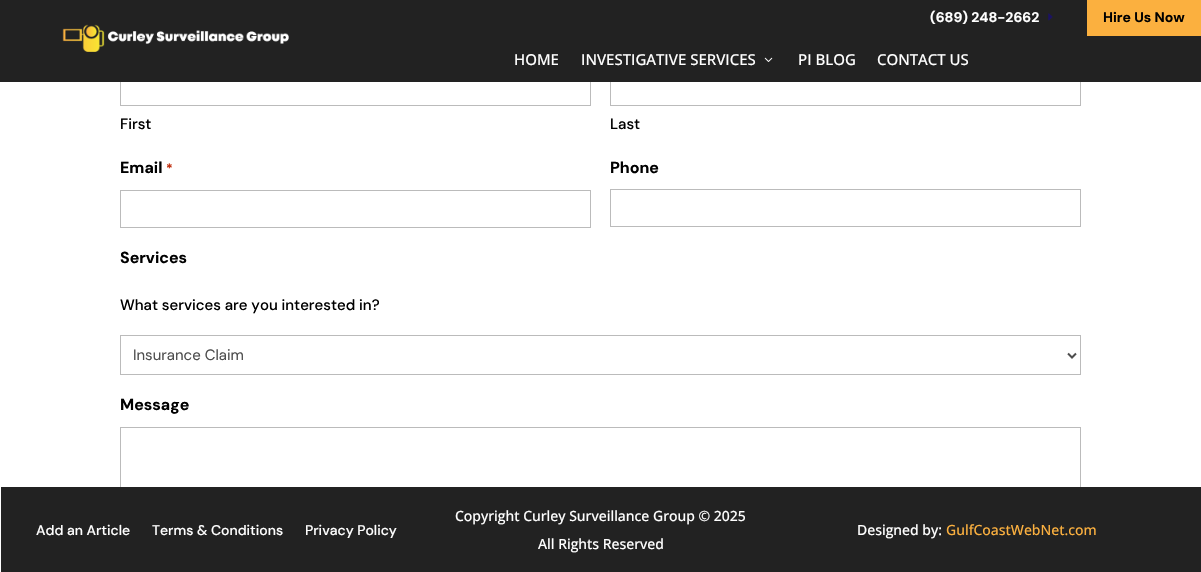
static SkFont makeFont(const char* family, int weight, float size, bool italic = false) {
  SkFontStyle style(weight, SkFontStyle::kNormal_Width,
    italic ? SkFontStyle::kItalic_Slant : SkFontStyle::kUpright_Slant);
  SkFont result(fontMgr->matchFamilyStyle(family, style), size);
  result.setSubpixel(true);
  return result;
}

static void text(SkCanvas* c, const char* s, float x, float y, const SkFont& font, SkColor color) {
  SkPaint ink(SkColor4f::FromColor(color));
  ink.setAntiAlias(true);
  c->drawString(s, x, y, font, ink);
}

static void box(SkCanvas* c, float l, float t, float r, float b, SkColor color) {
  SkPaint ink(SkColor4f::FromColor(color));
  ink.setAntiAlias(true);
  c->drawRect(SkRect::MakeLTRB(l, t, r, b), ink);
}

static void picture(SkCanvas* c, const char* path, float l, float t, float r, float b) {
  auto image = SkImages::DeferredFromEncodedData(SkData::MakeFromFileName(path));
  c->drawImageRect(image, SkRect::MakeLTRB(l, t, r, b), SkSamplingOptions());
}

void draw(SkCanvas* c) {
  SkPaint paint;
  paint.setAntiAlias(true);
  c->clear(0xffffffff);
  box(c, 0, 0, 1087, 36, 0xff222222);
  SkFont face1 = makeFont("DM Sans", 700, 14);
  text(c, "(689) 248-2662", 930, 22, face1, 0xffffffff);
  picture(c, "img_01.png", 1048, 13, 1053, 21);
  box(c, 1087, 0, 1201, 36, 0xfffbb03f);
  text(c, "Hire Us Now", 1103, 22, face1, 0xff000000);
  paint.setStyle(SkPaint::kStroke_Style);
  paint.setStrokeWidth(1);
  paint.setColor(0xffbbbbbb);
  c->drawRect(SkRect::MakeLTRB(120.5f, 68.5f, 590.5f, 105.5f), paint);
  c->drawRect(SkRect::MakeLTRB(610.5f, 68.5f, 1080.5f, 105.5f), paint);
  box(c, 0, 36, 1201, 82, 0xff222222);
  picture(c, "img_02.png", 62, 24, 289, 52);
  SkFont face2 = makeFont("Open Sans", 500, 15);
  text(c, "HOME", 514, 65, face2, 0xffffffff);
  text(c, "INVESTIGATIVE SERVICES", 581, 65, face2, 0xffffffff);
  picture(c, "img_03.png", 764, 57, 773, 62);
  text(c, "PI BLOG", 798, 65, face2, 0xffffffff);
  text(c, "CONTACT US", 877, 65, face2, 0xffffffff);
  SkFont face3 = makeFont("DM Sans", 500, 15);
  text(c, "First", 120, 129, face3, 0xff000000);
  text(c, "Last", 610, 129, face3, 0xff000000);
  SkFont face4 = makeFont("DM Sans", 700, 16);
  text(c, "Email", 120, 173, face4, 0xff000000);
  SkFont face5 = makeFont("DM Sans", 700, 13);
  text(c, "*", 166, 173, face5, 0xffc02b0a);
  c->drawRect(SkRect::MakeLTRB(120.5f, 190.5f, 590.5f, 227.5f), paint);
  text(c, "Phone", 610, 173, face4, 0xff000000);
  c->drawRect(SkRect::MakeLTRB(610.5f, 189.5f, 1080.5f, 226.5f), paint);
  text(c, "Services", 120, 263, face4, 0xff000000);
  text(c, "What services are you interested in?", 120, 310, face3, 0xff000000);
  c->drawRect(SkRect::MakeLTRB(120.5f, 335.5f, 1080.5f, 374.5f), paint);
  paint.setStrokeWidth(2);
  paint.setColor(0xff4e4e4e);
  c->drawPath(SkPathBuilder().moveTo(1068, 353.5f).lineTo(1072, 357.5f).lineTo(1076, 353.5f).detach(), paint);
  SkFont face6 = makeFont("DM Sans", 400, 15);
  text(c, "Insurance Claim", 133, 360, face6, 0xff4e4e4e);
  text(c, "Message", 120, 410, face4, 0xff000000);
  paint.setStrokeWidth(1);
  paint.setColor(0xffbbbbbb);
  c->drawRect(SkRect::MakeLTRB(120.5f, 427.5f, 1080.5f, 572.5f), paint);
  box(c, 1, 487, 1201, 572, 0xff222222);
  SkFont face7 = makeFont("DM Sans", 500, 14);
  text(c, "Add an Article", 36, 535, face7, 0xffffffff);
  text(c, "Terms & Conditions", 152, 535, face7, 0xffffffff);
  text(c, "Privacy Policy", 305, 535, face7, 0xffffffff);
  SkFont face8 = makeFont("Open Sans", 500, 14);
  text(c, "Copyright Curley Surveillance Group © 2025", 455, 521, face8, 0xffffffff);
  text(c, "All Rights Reserved", 538, 549, face8, 0xffffffff);
  text(c, "Designed by:", 857, 535, face8, 0xffffffff);
  text(c, "GulfCoastWebNet.com", 946, 535, face8, 0xfffbb03f);
}
